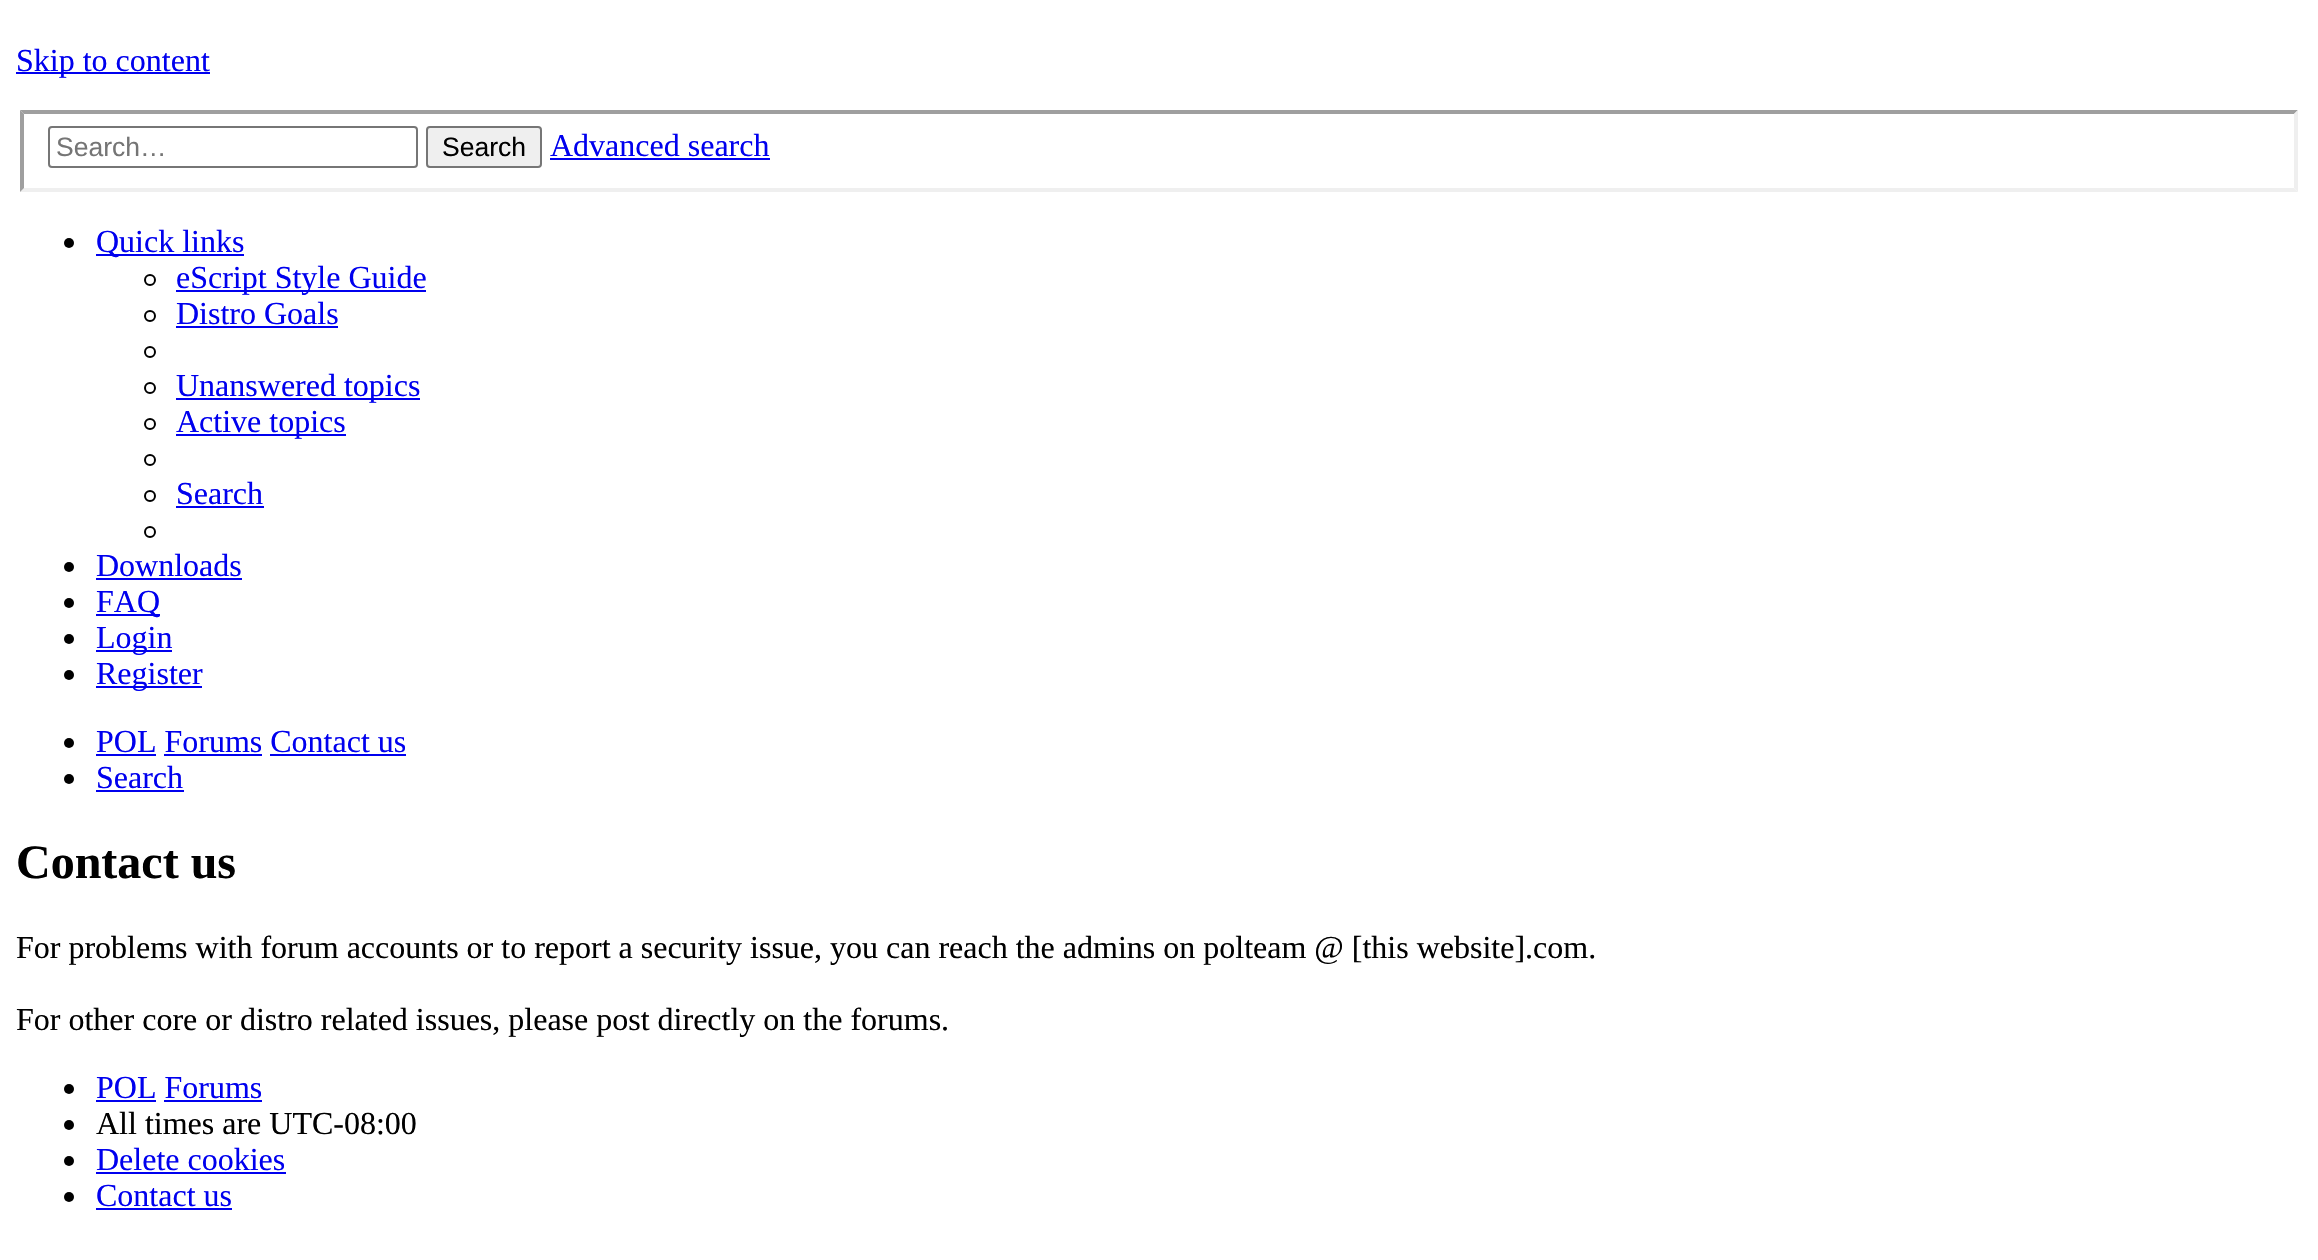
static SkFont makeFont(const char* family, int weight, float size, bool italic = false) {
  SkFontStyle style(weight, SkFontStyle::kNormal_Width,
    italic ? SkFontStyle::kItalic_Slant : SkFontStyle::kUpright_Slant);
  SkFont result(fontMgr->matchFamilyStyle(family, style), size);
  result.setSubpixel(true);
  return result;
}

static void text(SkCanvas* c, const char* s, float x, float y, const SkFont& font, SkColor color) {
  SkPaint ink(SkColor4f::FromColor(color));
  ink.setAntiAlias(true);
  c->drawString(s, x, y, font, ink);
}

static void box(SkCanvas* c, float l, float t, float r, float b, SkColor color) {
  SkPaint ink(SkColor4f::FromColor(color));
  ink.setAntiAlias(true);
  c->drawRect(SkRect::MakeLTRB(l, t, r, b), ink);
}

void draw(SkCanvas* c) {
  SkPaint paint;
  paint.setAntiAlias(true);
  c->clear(0xffffffff);
  box(c, 16, 72, 210, 74, 0xff0000ee);
  SkFont face1 = makeFont("Liberation Serif", 400, 32);
  text(c, "Skip to content", 16, 71, face1, 0xff0000ee);
  paint.setColor(0xff9f9f9f);
  c->drawPath(SkPathBuilder().moveTo(20, 110).lineTo(2298, 110).lineTo(2294, 114).lineTo(24, 114).close().detach(), paint);
  paint.setColor(0xffefefef);
  c->drawPath(SkPathBuilder().moveTo(2298, 110).lineTo(2298, 192).lineTo(2294, 188).lineTo(2294, 114).close().detach(), paint);
  c->drawPath(SkPathBuilder().moveTo(2298, 192).lineTo(20, 192).lineTo(24, 188).lineTo(2294, 188).close().detach(), paint);
  paint.setColor(0xff9f9f9f);
  c->drawPath(SkPathBuilder().moveTo(20, 192).lineTo(20, 110).lineTo(24, 114).lineTo(24, 188).close().detach(), paint);
  paint.setStyle(SkPaint::kStroke_Style);
  paint.setStrokeWidth(2);
  paint.setColor(0xff767676);
  c->drawRoundRect(SkRect::MakeLTRB(49, 127, 417, 167), 3, 3, paint);
  SkFont face2 = makeFont("Liberation Sans", 400, 26.5f);
  text(c, "Search…", 56, 156, face2, 0xff757575);
  paint.setStyle(SkPaint::kFill_Style);
  paint.setColor(0xffefefef);
  c->drawRoundRect(SkRect::MakeLTRB(427, 127, 541, 167), 3, 3, paint);
  paint.setStyle(SkPaint::kStroke_Style);
  paint.setColor(0xff767676);
  c->drawRoundRect(SkRect::MakeLTRB(427, 127, 541, 167), 3, 3, paint);
  text(c, "Search", 442, 156, face2, 0xff000000);
  text(c, "Advanced search", 550, 156, face1, 0xff0000ee);
  box(c, 550, 158, 770, 160, 0xff0000ee);
  paint.setStyle(SkPaint::kFill_Style);
  paint.setColor(0xff000000);
  c->drawCircle(69, 243, 5, paint);
  box(c, 96, 254, 244, 256, 0xff0000ee);
  text(c, "Quick links", 96, 252, face1, 0xff0000ee);
  paint.setStyle(SkPaint::kStroke_Style);
  c->drawCircle(150, 280, 5, paint);
  box(c, 176, 290, 426, 292, 0xff0000ee);
  text(c, "eScript Style Guide", 176, 288, face1, 0xff0000ee);
  c->drawCircle(150, 316, 5, paint);
  text(c, "Distro Goals", 176, 324, face1, 0xff0000ee);
  box(c, 176, 326, 338, 328, 0xff0000ee);
  c->drawCircle(150, 352, 5, paint);
  c->drawCircle(150, 388, 5, paint);
  box(c, 176, 398, 420, 400, 0xff0000ee);
  text(c, "Unanswered topics", 176, 396, face1, 0xff0000ee);
  c->drawCircle(150, 424, 5, paint);
  box(c, 176, 434, 346, 436, 0xff0000ee);
  text(c, "Active topics", 176, 432, face1, 0xff0000ee);
  c->drawCircle(150, 460, 5, paint);
  c->drawCircle(150, 496, 5, paint);
  text(c, "Search", 176, 504, face1, 0xff0000ee);
  box(c, 176, 506, 264, 508, 0xff0000ee);
  c->drawCircle(150, 532, 5, paint);
  paint.setStyle(SkPaint::kFill_Style);
  c->drawCircle(69, 567, 5, paint);
  text(c, "Downloads", 96, 576, face1, 0xff0000ee);
  box(c, 96, 578, 242, 580, 0xff0000ee);
  c->drawCircle(69, 603, 5, paint);
  box(c, 96, 614, 160, 616, 0xff0000ee);
  text(c, "FAQ", 96, 612, face1, 0xff0000ee);
  c->drawCircle(69, 639, 5, paint);
  box(c, 96, 650, 172, 652, 0xff0000ee);
  text(c, "Login", 96, 648, face1, 0xff0000ee);
  c->drawCircle(69, 675, 5, paint);
  box(c, 96, 686, 202, 688, 0xff0000ee);
  text(c, "Register", 96, 684, face1, 0xff0000ee);
  c->drawCircle(69, 743, 5, paint);
  text(c, "POL Forums Contact us", 96, 752, face1, 0xff0000ee);
  box(c, 96, 754, 156, 756, 0xff0000ee);
  box(c, 164, 754, 262, 756, 0xff0000ee);
  box(c, 270, 754, 406, 756, 0xff0000ee);
  c->drawCircle(69, 779, 5, paint);
  text(c, "Search", 96, 788, face1, 0xff0000ee);
  box(c, 96, 790, 184, 792, 0xff0000ee);
  SkFont face3 = makeFont("Liberation Serif", 700, 48);
  text(c, "Contact us", 16, 878, face3, 0xff000000);
  text(c, "For problems with forum accounts or to report a security issue, you can reach the admins on polteam @ [this website].com.", 16, 958, face1, 0xff000000);
  text(c, "For other core or distro related issues, please post directly on the forums.", 16, 1030, face1, 0xff000000);
  c->drawCircle(69, 1089, 5, paint);
  text(c, "POL Forums", 96, 1098, face1, 0xff0000ee);
  box(c, 96, 1100, 156, 1102, 0xff0000ee);
  box(c, 164, 1100, 262, 1102, 0xff0000ee);
  c->drawCircle(69, 1125, 5, paint);
  text(c, "All times are UTC-08:00", 96, 1134, face1, 0xff000000);
  c->drawCircle(69, 1161, 5, paint);
  text(c, "Delete cookies", 96, 1170, face1, 0xff0000ee);
  box(c, 96, 1172, 286, 1174, 0xff0000ee);
  c->drawCircle(69, 1197, 5, paint);
  text(c, "Contact us", 96, 1206, face1, 0xff0000ee);
  box(c, 96, 1208, 232, 1210, 0xff0000ee);
}
